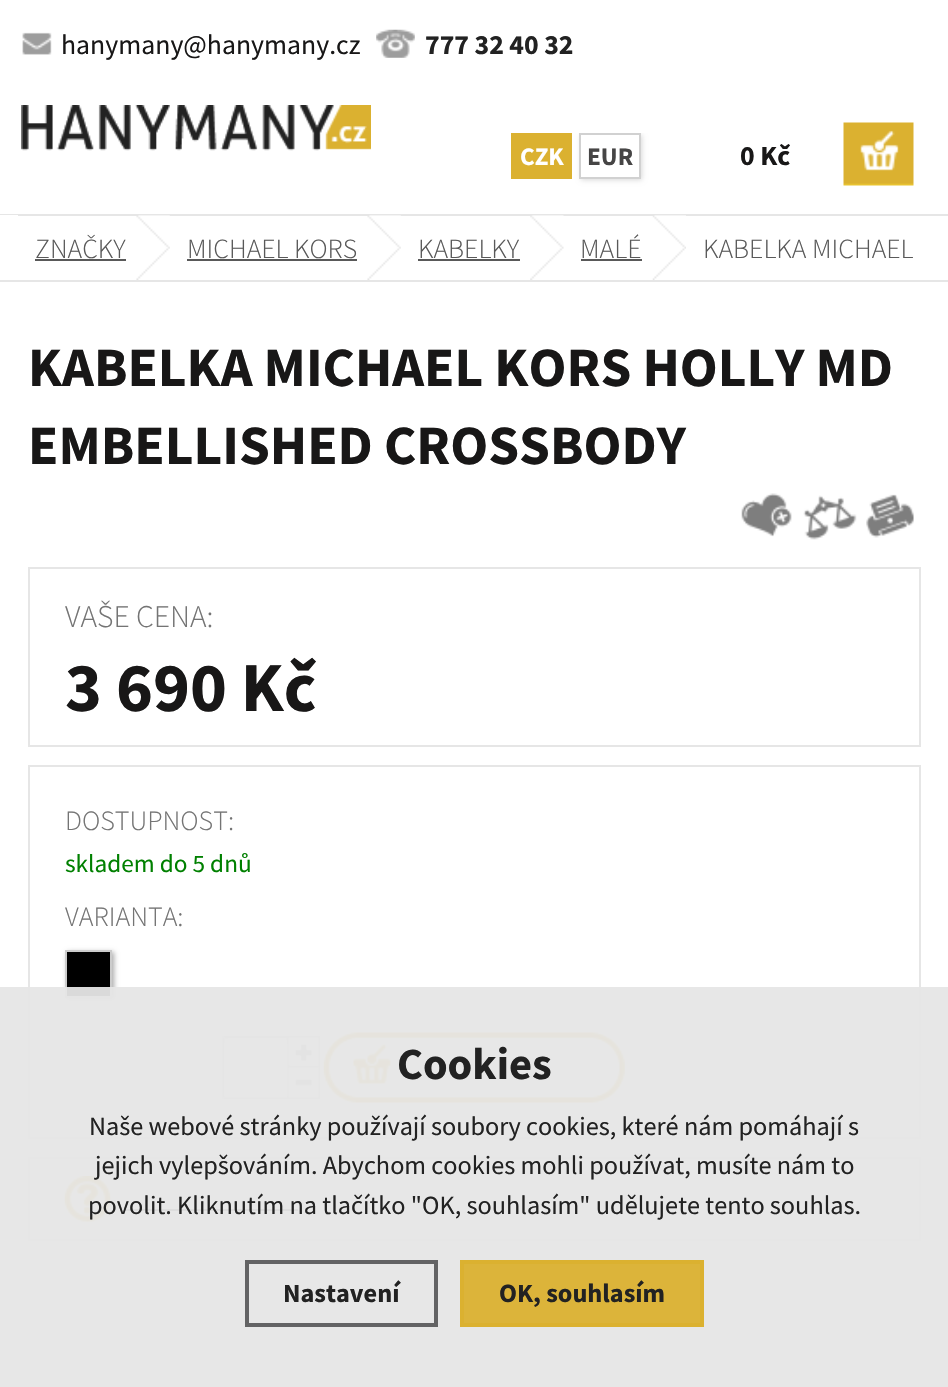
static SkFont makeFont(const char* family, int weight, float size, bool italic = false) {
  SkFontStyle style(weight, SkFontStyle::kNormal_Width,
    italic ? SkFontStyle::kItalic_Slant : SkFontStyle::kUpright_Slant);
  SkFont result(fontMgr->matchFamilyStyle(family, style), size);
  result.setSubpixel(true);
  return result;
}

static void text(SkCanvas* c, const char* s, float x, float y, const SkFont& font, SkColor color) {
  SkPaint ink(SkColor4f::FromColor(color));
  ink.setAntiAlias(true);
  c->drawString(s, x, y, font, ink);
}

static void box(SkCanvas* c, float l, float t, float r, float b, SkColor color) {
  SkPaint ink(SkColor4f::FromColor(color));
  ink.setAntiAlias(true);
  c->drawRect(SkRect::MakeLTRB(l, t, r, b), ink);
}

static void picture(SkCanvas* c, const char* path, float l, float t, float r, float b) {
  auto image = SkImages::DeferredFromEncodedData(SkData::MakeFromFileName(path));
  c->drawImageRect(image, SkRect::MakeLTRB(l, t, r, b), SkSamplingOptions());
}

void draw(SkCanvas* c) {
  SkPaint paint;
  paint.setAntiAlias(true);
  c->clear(0xffffffff);
  picture(c, "img_01.png", 22, 32, 52, 55);
  SkFont face1 = makeFont("Source Sans Pro", 400, 27.75f);
  text(c, "hanymany@hanymany.cz", 61, 54, face1, 0xff181717);
  picture(c, "img_02.png", 376, 29, 415, 58);
  SkFont face2 = makeFont("Source Sans Pro", 700, 27.75f);
  text(c, "777 32 40 32", 425, 54, face2, 0xff222222);
  picture(c, "img_03.png", 21, 105, 371, 151);
  box(c, 511, 133, 572, 179, 0xffdbb130);
  SkFont face3 = makeFont("Source Sans Pro", 700, 25.25f);
  text(c, "CZK", 520, 165, face3, 0xffffffff);
  c->save();
  c->clipRect(SkRect::MakeLTRB(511, 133, 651, 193));
  paint.setColor(0xffd9d9d9);
  paint.setMaskFilter(SkMaskFilter::MakeBlur(kNormal_SkBlurStyle, 2.5f));
  c->drawRect(SkRect::MakeLTRB(581, 135, 642, 180), paint);
  paint.setMaskFilter(nullptr);
  c->restore();
  paint.setColor(0xffffffff);
  c->drawRect(SkRect::MakeLTRB(580, 134, 640, 178), paint);
  paint.setStyle(SkPaint::kStroke_Style);
  paint.setStrokeWidth(2);
  paint.setColor(0xffd1d1d1);
  c->drawRect(SkRect::MakeLTRB(580, 134, 640, 178), paint);
  text(c, "EUR", 587, 165, face3, 0xff464545);
  picture(c, "img_04.png", 843, 122, 914, 186);
  text(c, "0 Kč", 740, 165, face2, 0xff181717);
  box(c, 0, 214, 948, 216, 0xffe6e6e6);
  box(c, 0, 280, 948, 282, 0xffe6e6e6);
  box(c, 0, 215, 18, 216, 0xffffffff);
  picture(c, "img_05.png", 136, 215, 170, 280);
  SkFont face4 = makeFont("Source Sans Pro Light", 300, 27.75f);
  text(c, "ZNAČKY", 35, 258, face4, 0xff595959);
  box(c, 35, 259, 126, 261, 0xff595959);
  picture(c, "img_06.png", 367, 215, 401, 280);
  text(c, "MICHAEL KORS", 187, 258, face4, 0xff595959);
  box(c, 187, 259, 357, 261, 0xff595959);
  picture(c, "img_07.png", 530, 215, 564, 280);
  text(c, "KABELKY", 418, 258, face4, 0xff595959);
  box(c, 418, 259, 520, 261, 0xff595959);
  picture(c, "img_08.png", 652, 215, 686, 280);
  text(c, "MALÉ", 580, 258, face4, 0xff595959);
  box(c, 581, 259, 642, 261, 0xff595959);
  text(c, "KABELKA MICHAEL", 703, 258, face4, 0xff595959);
  SkFont face5 = makeFont("Source Sans Pro", 700, 55.5f);
  text(c, "KABELKA MICHAEL KORS HOLLY MD", 28, 386, face5, 0xff181717);
  text(c, "EMBELLISHED CROSSBODY", 28, 464, face5, 0xff181717);
  picture(c, "img_09.png", 741, 493, 792, 537);
  picture(c, "img_10.png", 803, 495, 857, 540);
  picture(c, "img_11.png", 866, 494, 914, 538);
  paint.setColor(0xffe6e6e6);
  c->drawRect(SkRect::MakeLTRB(29, 568, 920, 746), paint);
  SkFont face6 = makeFont("Source Sans Pro Light", 300, 31.5f);
  text(c, "VAŠE CENA:", 65, 627, face6, 0xff747474);
  SkFont face7 = makeFont("Source Sans Pro", 700, 70);
  text(c, "3 690 Kč", 65, 711, face7, 0xff181717);
  c->drawRect(SkRect::MakeLTRB(29, 766, 920, 1138), paint);
  SkFont face8 = makeFont("Source Sans Pro Light", 300, 28);
  text(c, "DOSTUPNOST:", 65, 830, face8, 0xff747474);
  SkFont face9 = makeFont("Source Sans Pro", 400, 25.25f);
  text(c, "skladem do 5 dnů", 65, 872, face9, 0xff008000);
  text(c, "VARIANTA:", 65, 926, face8, 0xff747474);
  paint.setStyle(SkPaint::kFill_Style);
  paint.setColor(0xffaaaaaa);
  paint.setMaskFilter(SkMaskFilter::MakeBlur(kNormal_SkBlurStyle, 2.5f));
  c->drawRect(SkRect::MakeLTRB(67, 952, 114, 999), paint);
  paint.setMaskFilter(nullptr);
  paint.setColor(0xff000000);
  c->drawRect(SkRect::MakeLTRB(66, 951, 111, 997), paint);
  paint.setStyle(SkPaint::kStroke_Style);
  paint.setColor(0xffcccccc);
  c->drawRect(SkRect::MakeLTRB(66, 951, 111, 997), paint);
  picture(c, "img_12.png", 222, 1036, 321, 1099);
  picture(c, "img_13.png", 323, 1032, 625, 1103);
  paint.setColor(0xffe6e6e6);
  c->drawRect(SkRect::MakeLTRB(29, 1158, 920, 1240), paint);
  picture(c, "img_14.png", 64, 1176, 111, 1222);
  box(c, 126, 1209, 298, 1211, 0xff2c2c2c);
  box(c, 0, 987, 948, 1387, 0xf2e6e6e6);
  SkFont face10 = makeFont("Source Sans Pro", 700, 44.5f);
  text(c, "Cookies", 397, 1079, face10, 0xff222222);
  SkFont face11 = makeFont("Source Sans Pro", 400, 26.25f);
  text(c, "Naše webové stránky používají soubory cookies, které nám pomáhají s", 89, 1135, face11, 0xff222222);
  text(c, "jejich vylepšováním. Abychom cookies mohli používat, musíte nám to", 95, 1174, face11, 0xff222222);
  text(c, "povolit. Kliknutím na tlačítko \"OK, souhlasím\" udělujete tento souhlas.", 88, 1214, face11, 0xff222222);
  paint.setStrokeWidth(4);
  paint.setColor(0xf25c5c5d);
  c->drawRect(SkRect::MakeLTRB(247, 1262, 436, 1325), paint);
  SkFont face12 = makeFont("Source Sans Pro", 700, 26.25f);
  text(c, "Nastavení", 283, 1302, face12, 0xff222222);
  paint.setStyle(SkPaint::kFill_Style);
  paint.setColor(0xf2dbb130);
  c->drawRect(SkRect::MakeLTRB(462, 1262, 702, 1325), paint);
  paint.setStyle(SkPaint::kStroke_Style);
  paint.setColor(0xffdbb130);
  c->drawRect(SkRect::MakeLTRB(462, 1262, 702, 1325), paint);
  text(c, "OK, souhlasím", 499, 1302, face12, 0xff222222);
}
